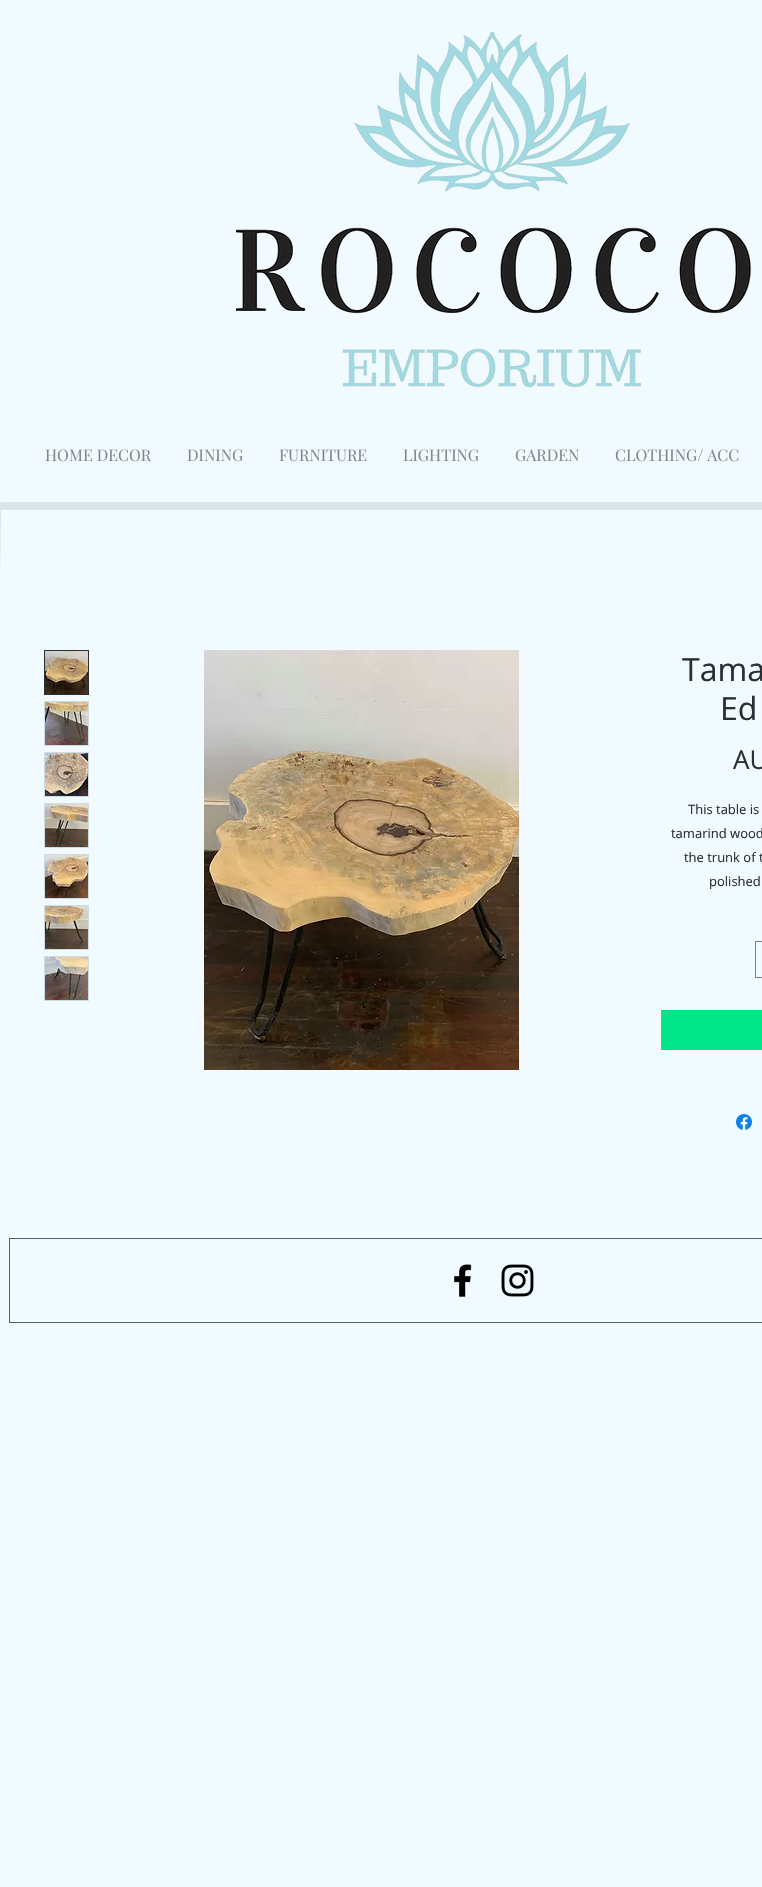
static SkFont makeFont(const char* family, int weight, float size, bool italic = false) {
  SkFontStyle style(weight, SkFontStyle::kNormal_Width,
    italic ? SkFontStyle::kItalic_Slant : SkFontStyle::kUpright_Slant);
  SkFont result(fontMgr->matchFamilyStyle(family, style), size);
  result.setSubpixel(true);
  return result;
}

static void text(SkCanvas* c, const char* s, float x, float y, const SkFont& font, SkColor color) {
  SkPaint ink(SkColor4f::FromColor(color));
  ink.setAntiAlias(true);
  c->drawString(s, x, y, font, ink);
}

static void box(SkCanvas* c, float l, float t, float r, float b, SkColor color) {
  SkPaint ink(SkColor4f::FromColor(color));
  ink.setAntiAlias(true);
  c->drawRect(SkRect::MakeLTRB(l, t, r, b), ink);
}

static void picture(SkCanvas* c, const char* path, float l, float t, float r, float b) {
  auto image = SkImages::DeferredFromEncodedData(SkData::MakeFromFileName(path));
  c->drawImageRect(image, SkRect::MakeLTRB(l, t, r, b), SkSamplingOptions());
}

void draw(SkCanvas* c) {
  SkPaint paint;
  paint.setAntiAlias(true);
  c->clear(0xfff0faff);
  picture(c, "img_01.png", 236, 32, 752, 388);
  SkFont face1 = makeFont("Playfair Display", 400, 16);
  text(c, "HOME DECOR", 45, 461, face1, 0xff858585);
  text(c, "DINING", 187, 461, face1, 0xff858585);
  text(c, "FURNITURE", 279, 461, face1, 0xff858585);
  text(c, "LIGHTING", 403, 461, face1, 0xff858585);
  text(c, "GARDEN", 515, 461, face1, 0xff858585);
  text(c, "CLOTHING/ ACC", 615, 461, face1, 0xff858585);
  picture(c, "img_02.png", 0, 502, 762, 571);
  box(c, 1, 510, 762, 571, 0xfff0faff);
  paint.setStyle(SkPaint::kStroke_Style);
  paint.setStrokeWidth(1);
  paint.setColor(0xff292f33);
  c->drawRect(SkRect::MakeLTRB(44.5f, 650.5f, 88.5f, 694.5f), paint);
  picture(c, "img_03.png", 45, 651, 88, 694);
  paint.setColor(0xffcadde6);
  c->drawRect(SkRect::MakeLTRB(44.5f, 701.5f, 88.5f, 745.5f), paint);
  picture(c, "img_04.png", 45, 702, 88, 745);
  c->drawRect(SkRect::MakeLTRB(44.5f, 752.5f, 88.5f, 796.5f), paint);
  picture(c, "img_05.png", 45, 753, 88, 796);
  c->drawRect(SkRect::MakeLTRB(44.5f, 803.5f, 88.5f, 847.5f), paint);
  picture(c, "img_06.png", 45, 804, 88, 847);
  c->drawRect(SkRect::MakeLTRB(44.5f, 854.5f, 88.5f, 898.5f), paint);
  picture(c, "img_07.png", 45, 855, 88, 898);
  c->drawRect(SkRect::MakeLTRB(44.5f, 905.5f, 88.5f, 949.5f), paint);
  picture(c, "img_08.png", 45, 906, 88, 949);
  c->drawRect(SkRect::MakeLTRB(44.5f, 956.5f, 88.5f, 1000.5f), paint);
  picture(c, "img_09.png", 45, 957, 88, 1000);
  picture(c, "img_10.png", 204, 650, 519, 1070);
  SkFont face2 = makeFont("Open Sans", 400, 32);
  text(c, "Tama", 682, 681, face2, 0xff292f33);
  text(c, "Ed", 720, 720, face2, 0xff292f33);
  SkFont face3 = makeFont("Open Sans", 400, 26);
  text(c, "AU", 733, 769, face3, 0xff292f33);
  SkFont face4 = makeFont("Open Sans", 400, 13);
  text(c, "This table is", 688, 814, face4, 0xff292f33);
  text(c, "tamarind wood", 671, 838, face4, 0xff292f33);
  text(c, "the trunk of t", 684, 862, face4, 0xff292f33);
  text(c, "polished", 709, 886, face4, 0xff292f33);
  paint.setColor(0xff798085);
  c->drawRect(SkRect::MakeLTRB(755.5f, 941.5f, 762.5f, 977.5f), paint);
  box(c, 661, 1010, 762, 1050, 0xff00e689);
  picture(c, "img_11.png", 736, 1114, 752, 1130);
  paint.setColor(0xff515e65);
  c->drawRect(SkRect::MakeLTRB(9.5f, 1238.5f, 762.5f, 1322.5f), paint);
  picture(c, "img_12.png", 454, 1264, 472, 1297);
  picture(c, "img_13.png", 501, 1264, 534, 1297);
}
